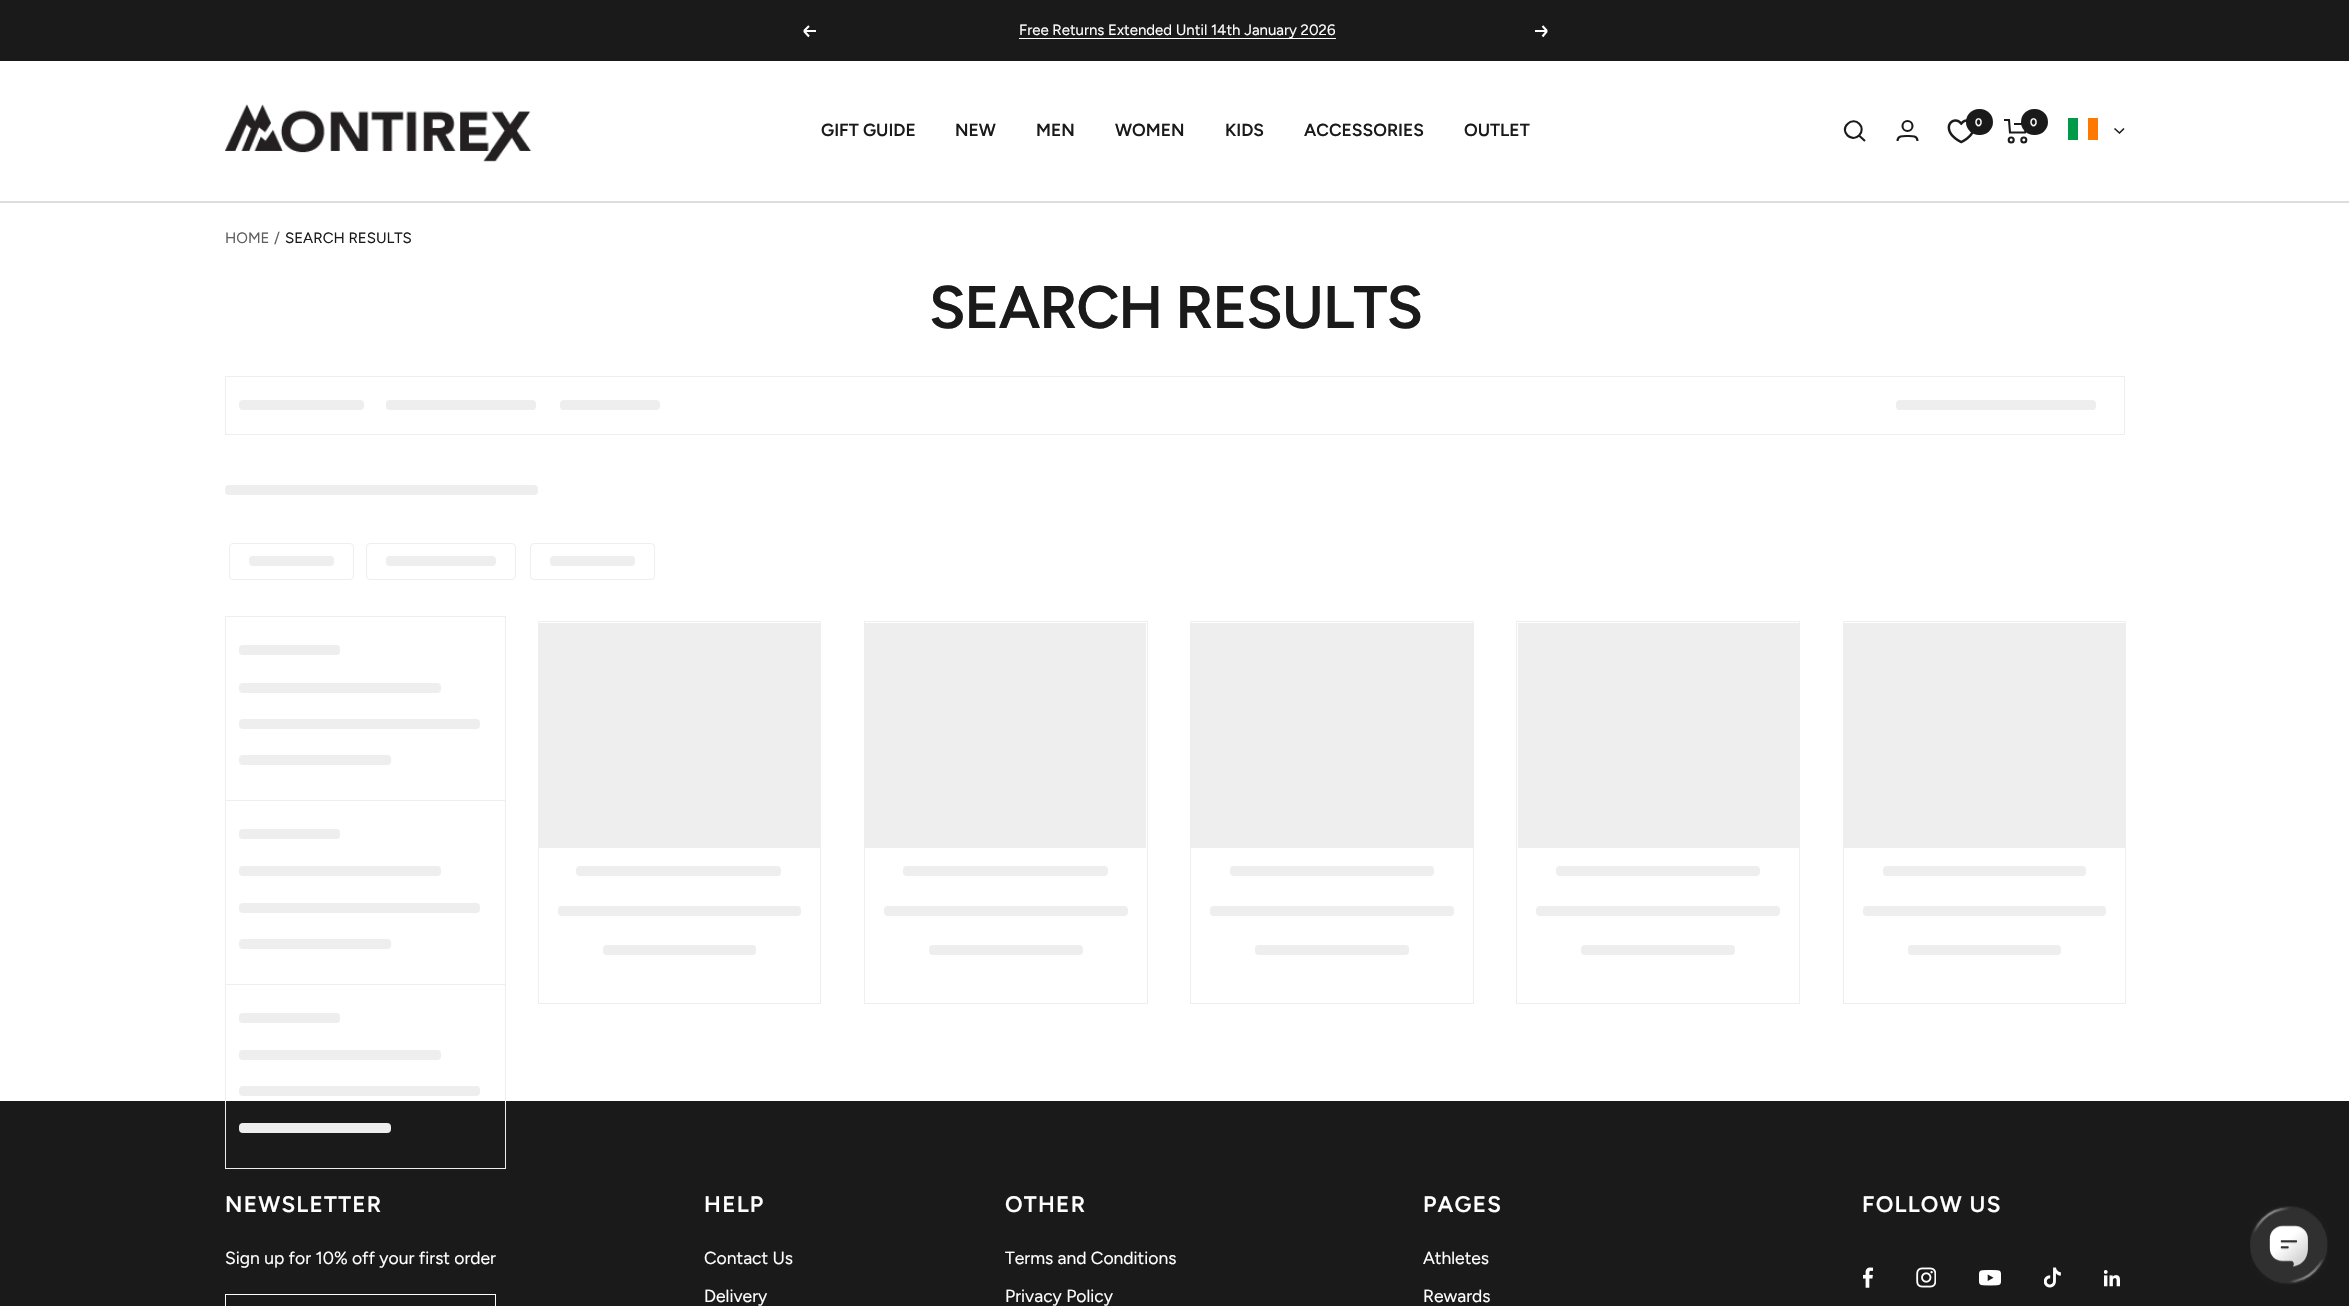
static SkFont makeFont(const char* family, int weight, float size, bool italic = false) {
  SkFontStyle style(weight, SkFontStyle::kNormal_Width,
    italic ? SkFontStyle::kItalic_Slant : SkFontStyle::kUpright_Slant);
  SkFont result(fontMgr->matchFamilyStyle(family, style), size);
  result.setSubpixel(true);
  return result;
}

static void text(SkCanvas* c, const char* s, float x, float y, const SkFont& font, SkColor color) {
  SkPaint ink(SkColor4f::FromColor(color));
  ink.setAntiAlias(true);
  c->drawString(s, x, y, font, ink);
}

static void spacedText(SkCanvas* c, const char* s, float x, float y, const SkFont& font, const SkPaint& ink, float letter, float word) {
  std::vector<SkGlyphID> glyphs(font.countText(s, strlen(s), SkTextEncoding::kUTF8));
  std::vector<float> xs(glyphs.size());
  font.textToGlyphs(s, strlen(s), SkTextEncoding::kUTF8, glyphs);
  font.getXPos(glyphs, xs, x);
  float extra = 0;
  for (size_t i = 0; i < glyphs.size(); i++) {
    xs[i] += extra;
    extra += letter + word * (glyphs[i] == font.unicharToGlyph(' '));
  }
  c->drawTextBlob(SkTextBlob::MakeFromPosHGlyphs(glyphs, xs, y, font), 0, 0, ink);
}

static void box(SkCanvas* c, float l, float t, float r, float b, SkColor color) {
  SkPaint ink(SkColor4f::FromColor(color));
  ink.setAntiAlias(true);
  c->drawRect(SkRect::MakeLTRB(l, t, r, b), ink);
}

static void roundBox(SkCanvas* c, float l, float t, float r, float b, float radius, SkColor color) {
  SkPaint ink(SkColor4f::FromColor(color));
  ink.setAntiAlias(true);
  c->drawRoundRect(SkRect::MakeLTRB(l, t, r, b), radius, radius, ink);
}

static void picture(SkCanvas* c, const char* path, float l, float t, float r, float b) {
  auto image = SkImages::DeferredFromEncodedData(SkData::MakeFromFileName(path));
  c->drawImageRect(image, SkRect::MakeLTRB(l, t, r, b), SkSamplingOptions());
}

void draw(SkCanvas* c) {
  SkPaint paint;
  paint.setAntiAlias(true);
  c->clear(0xffffffff);
  box(c, 0, 0, 2349, 61, 0xff1a1a1a);
  paint.setStyle(SkPaint::kStroke_Style);
  paint.setStrokeWidth(2.1f);
  paint.setColor(0xffffffff);
  c->drawPath(SkPathBuilder().moveTo(816, 31).lineTo(804, 31).moveTo(804, 31).lineTo(809, 36.5f).moveTo(804, 31).lineTo(809, 26).detach(), paint);
  box(c, 1019, 38, 1336, 39, 0xffffffff);
  SkFont face1 = makeFont("Figtree", 400, 15);
  text(c, "Free Returns Extended Until 14th January 2026", 1019, 35, face1, 0xffffffff);
  c->drawPath(SkPathBuilder().moveTo(1535, 31).lineTo(1547, 31).moveTo(1547, 31).lineTo(1542.5f, 36.5f).moveTo(1547, 31).lineTo(1542.5f, 26).detach(), paint);
  box(c, 0, 201, 2349, 203, 0xffdddddd);
  picture(c, "img_01.png", 225, 104, 532, 162);
  SkFont face2 = makeFont("Figtree", 600, 17.5f);
  text(c, "GIFT GUIDE", 821, 136, face2, 0xff1a1a1a);
  text(c, "NEW", 955, 136, face2, 0xff1a1a1a);
  text(c, "MEN", 1036, 136, face2, 0xff1a1a1a);
  text(c, "WOMEN", 1115, 136, face2, 0xff1a1a1a);
  text(c, "KIDS", 1225, 136, face2, 0xff1a1a1a);
  text(c, "ACCESSORIES", 1304, 136, face2, 0xff1a1a1a);
  text(c, "OUTLET", 1464, 136, face2, 0xff1a1a1a);
  paint.setColor(0xff1a1a1a);
  c->drawPath(SkPathBuilder().moveTo(1859, 135.5f).cubicTo(1867, 127.5f, 1855.5f, 116, 1847.5f, 124).cubicTo(1839.5f, 131.5f, 1851.5f, 143, 1859, 135.5f).close().moveTo(1859, 135.5f).lineTo(1865, 141).detach(), paint);
  c->drawCircle(1907.5f, 126, 5, paint);
  c->drawPath(SkPathBuilder().moveTo(1897.5f, 141).cubicTo(1897.5f, 135.5f, 1903.5f, 136, 1907.5f, 136).cubicTo(1911.5f, 136, 1917.5f, 135.5f, 1917.5f, 141).detach(), paint);
  picture(c, "img_02.png", 1947, 119, 1974, 144);
  roundBox(c, 1966, 109, 1993, 135, 13, 0xff1a1a1a);
  SkFont face3 = makeFont("Figtree", 600, 11);
  text(c, "0", 1975, 126, face3, 0xffffffff);
  c->drawPath(SkPathBuilder().moveTo(2004, 120).lineTo(2009, 120).lineTo(2010, 132.5f).lineTo(2025, 132.5f).lineTo(2027.5f, 124).lineTo(2014, 124).detach(), paint);
  c->drawCircle(2011.2f, 140, 2.5f, paint);
  c->drawCircle(2023.8f, 140, 2.5f, paint);
  roundBox(c, 2021, 109, 2048, 135, 13, 0xff1a1a1a);
  text(c, "0", 2030, 126, face3, 0xffffffff);
  box(c, 2068, 118, 2078, 140, 0xff009a49);
  box(c, 2088, 118, 2098, 140, 0xffff7900);
  paint.setStrokeWidth(1.6f);
  c->drawPath(SkPathBuilder().moveTo(2114.5f, 128.5f).lineTo(2119.5f, 133).lineTo(2124, 128.5f).detach(), paint);
  text(c, "HOME", 225, 243, face1, 0xff5f5f5f);
  text(c, "/", 274, 243, face1, 0xff5f5f5f);
  text(c, "SEARCH RESULTS", 285, 243, face1, 0xff1a1a1a);
  SkFont face4 = makeFont("Figtree", 600, 60);
  paint.setStyle(SkPaint::kFill_Style);
  spacedText(c, "SEARCH RESULTS", 929, 328, face4, paint, -1.25f, 0);
  paint.setStyle(SkPaint::kStroke_Style);
  paint.setStrokeWidth(1);
  paint.setColor(0xffeeeeee);
  c->drawRect(SkRect::MakeLTRB(225.5f, 376.5f, 2124.5f, 434.5f), paint);
  roundBox(c, 239, 400, 364, 410, 4, 0xffeeeeee);
  roundBox(c, 386, 400, 536, 410, 4, 0xffeeeeee);
  roundBox(c, 560, 400, 660, 410, 4, 0xffeeeeee);
  roundBox(c, 1896, 400, 2096, 410, 4, 0xffeeeeee);
  roundBox(c, 225, 485, 538, 495, 4, 0xffeeeeee);
  c->drawRoundRect(SkRect::MakeLTRB(229.5f, 543.5f, 353.5f, 579.5f), 3.5f, 3.5f, paint);
  roundBox(c, 249, 556, 334, 566, 4, 0xffeeeeee);
  c->drawRoundRect(SkRect::MakeLTRB(366.5f, 543.5f, 515.5f, 579.5f), 3.5f, 3.5f, paint);
  roundBox(c, 386, 556, 496, 566, 4, 0xffeeeeee);
  c->drawRoundRect(SkRect::MakeLTRB(530.5f, 543.5f, 654.5f, 579.5f), 3.5f, 3.5f, paint);
  roundBox(c, 550, 556, 635, 566, 4, 0xffeeeeee);
  box(c, 225, 616, 506, 617, 0xffeeeeee);
  box(c, 505, 616, 506, 800, 0xffeeeeee);
  box(c, 225, 616, 226, 800, 0xffeeeeee);
  roundBox(c, 239, 645, 340, 655, 4, 0xffeeeeee);
  roundBox(c, 239, 683, 441, 693, 4, 0xffeeeeee);
  roundBox(c, 239, 719, 480, 729, 4, 0xffeeeeee);
  roundBox(c, 239, 755, 391, 765, 4, 0xffeeeeee);
  box(c, 225, 800, 506, 801, 0xffeeeeee);
  box(c, 505, 800, 506, 984, 0xffeeeeee);
  box(c, 225, 800, 226, 984, 0xffeeeeee);
  roundBox(c, 239, 829, 340, 839, 4, 0xffeeeeee);
  roundBox(c, 239, 866, 441, 876, 4, 0xffeeeeee);
  roundBox(c, 239, 903, 480, 913, 4, 0xffeeeeee);
  roundBox(c, 239, 939, 391, 949, 4, 0xffeeeeee);
  box(c, 0, 1101, 2349, 1306, 0xff1a1a1a);
  c->drawRect(SkRect::MakeLTRB(225.5f, 984.5f, 505.5f, 1168.5f), paint);
  roundBox(c, 239, 1013, 340, 1023, 4, 0xffeeeeee);
  roundBox(c, 239, 1050, 441, 1060, 4, 0xffeeeeee);
  roundBox(c, 239, 1086, 480, 1096, 4, 0xffeeeeee);
  roundBox(c, 239, 1123, 391, 1133, 4, 0xffeeeeee);
  c->drawRect(SkRect::MakeLTRB(538.5f, 621.5f, 820.5f, 1003.5f), paint);
  box(c, 539, 623, 820, 848, 0xffeeeeee);
  roundBox(c, 576, 866, 781, 876, 4, 0xffeeeeee);
  roundBox(c, 558, 906, 801, 916, 4, 0xffeeeeee);
  roundBox(c, 603, 945, 756, 955, 4, 0xffeeeeee);
  c->drawRect(SkRect::MakeLTRB(864.5f, 621.5f, 1147.5f, 1003.5f), paint);
  box(c, 865, 623, 1146, 848, 0xffeeeeee);
  roundBox(c, 903, 866, 1108, 876, 4, 0xffeeeeee);
  roundBox(c, 884, 906, 1128, 916, 4, 0xffeeeeee);
  roundBox(c, 929, 945, 1083, 955, 4, 0xffeeeeee);
  c->drawRect(SkRect::MakeLTRB(1190.5f, 621.5f, 1473.5f, 1003.5f), paint);
  box(c, 1191, 623, 1473, 848, 0xffeeeeee);
  roundBox(c, 1230, 866, 1434, 876, 4, 0xffeeeeee);
  roundBox(c, 1210, 906, 1454, 916, 4, 0xffeeeeee);
  roundBox(c, 1255, 945, 1409, 955, 4, 0xffeeeeee);
  c->drawRect(SkRect::MakeLTRB(1516.5f, 621.5f, 1799.5f, 1003.5f), paint);
  box(c, 1518, 623, 1799, 848, 0xffeeeeee);
  roundBox(c, 1556, 866, 1760, 876, 4, 0xffeeeeee);
  roundBox(c, 1536, 906, 1780, 916, 4, 0xffeeeeee);
  roundBox(c, 1581, 945, 1735, 955, 4, 0xffeeeeee);
  c->drawRect(SkRect::MakeLTRB(1843.5f, 621.5f, 2125.5f, 1003.5f), paint);
  box(c, 1844, 623, 2125, 848, 0xffeeeeee);
  roundBox(c, 1883, 866, 2086, 876, 4, 0xffeeeeee);
  roundBox(c, 1863, 906, 2106, 916, 4, 0xffeeeeee);
  roundBox(c, 1908, 945, 2061, 955, 4, 0xffeeeeee);
  SkFont face5 = makeFont("Figtree", 600, 22.5f);
  paint.setStyle(SkPaint::kFill_Style);
  paint.setColor(0xffffffff);
  spacedText(c, "NEWSLETTER", 225, 1212, face5, paint, 1.25f, 0);
  SkFont face6 = makeFont("Figtree", 400, 17.5f);
  text(c, "Sign up for 10% off your first order", 225, 1264, face6, 0xffffffff);
  paint.setStyle(SkPaint::kStroke_Style);
  c->drawRect(SkRect::MakeLTRB(225.5f, 1294.5f, 495.5f, 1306.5f), paint);
  paint.setStyle(SkPaint::kFill_Style);
  spacedText(c, "HELP", 704, 1212, face5, paint, 1.25f, 0);
  text(c, "Contact Us", 704, 1264, face6, 0xffffffff);
  text(c, "Delivery", 704, 1302, face6, 0xffffffff);
  spacedText(c, "OTHER", 1005, 1212, face5, paint, 1.25f, 0);
  text(c, "Terms and Conditions", 1005, 1264, face6, 0xffffffff);
  text(c, "Privacy Policy", 1005, 1302, face6, 0xffffffff);
  spacedText(c, "PAGES", 1423, 1212, face5, paint, 1.25f, 0);
  text(c, "Athletes", 1423, 1264, face6, 0xffffffff);
  text(c, "Rewards", 1423, 1302, face6, 0xffffffff);
  spacedText(c, "FOLLOW US", 1862, 1212, face5, paint, 1.25f, 0);
  picture(c, "img_03.png", 1863, 1267, 1873, 1288);
  picture(c, "img_04.png", 1916, 1267, 1936, 1288);
  picture(c, "img_05.png", 1979, 1270, 2001, 1286);
  picture(c, "img_06.png", 2044, 1267, 2061, 1288);
  picture(c, "img_07.png", 2104, 1270, 2120, 1287);
  picture(c, "img_08.png", 2250, 1206, 2328, 1285);
}
